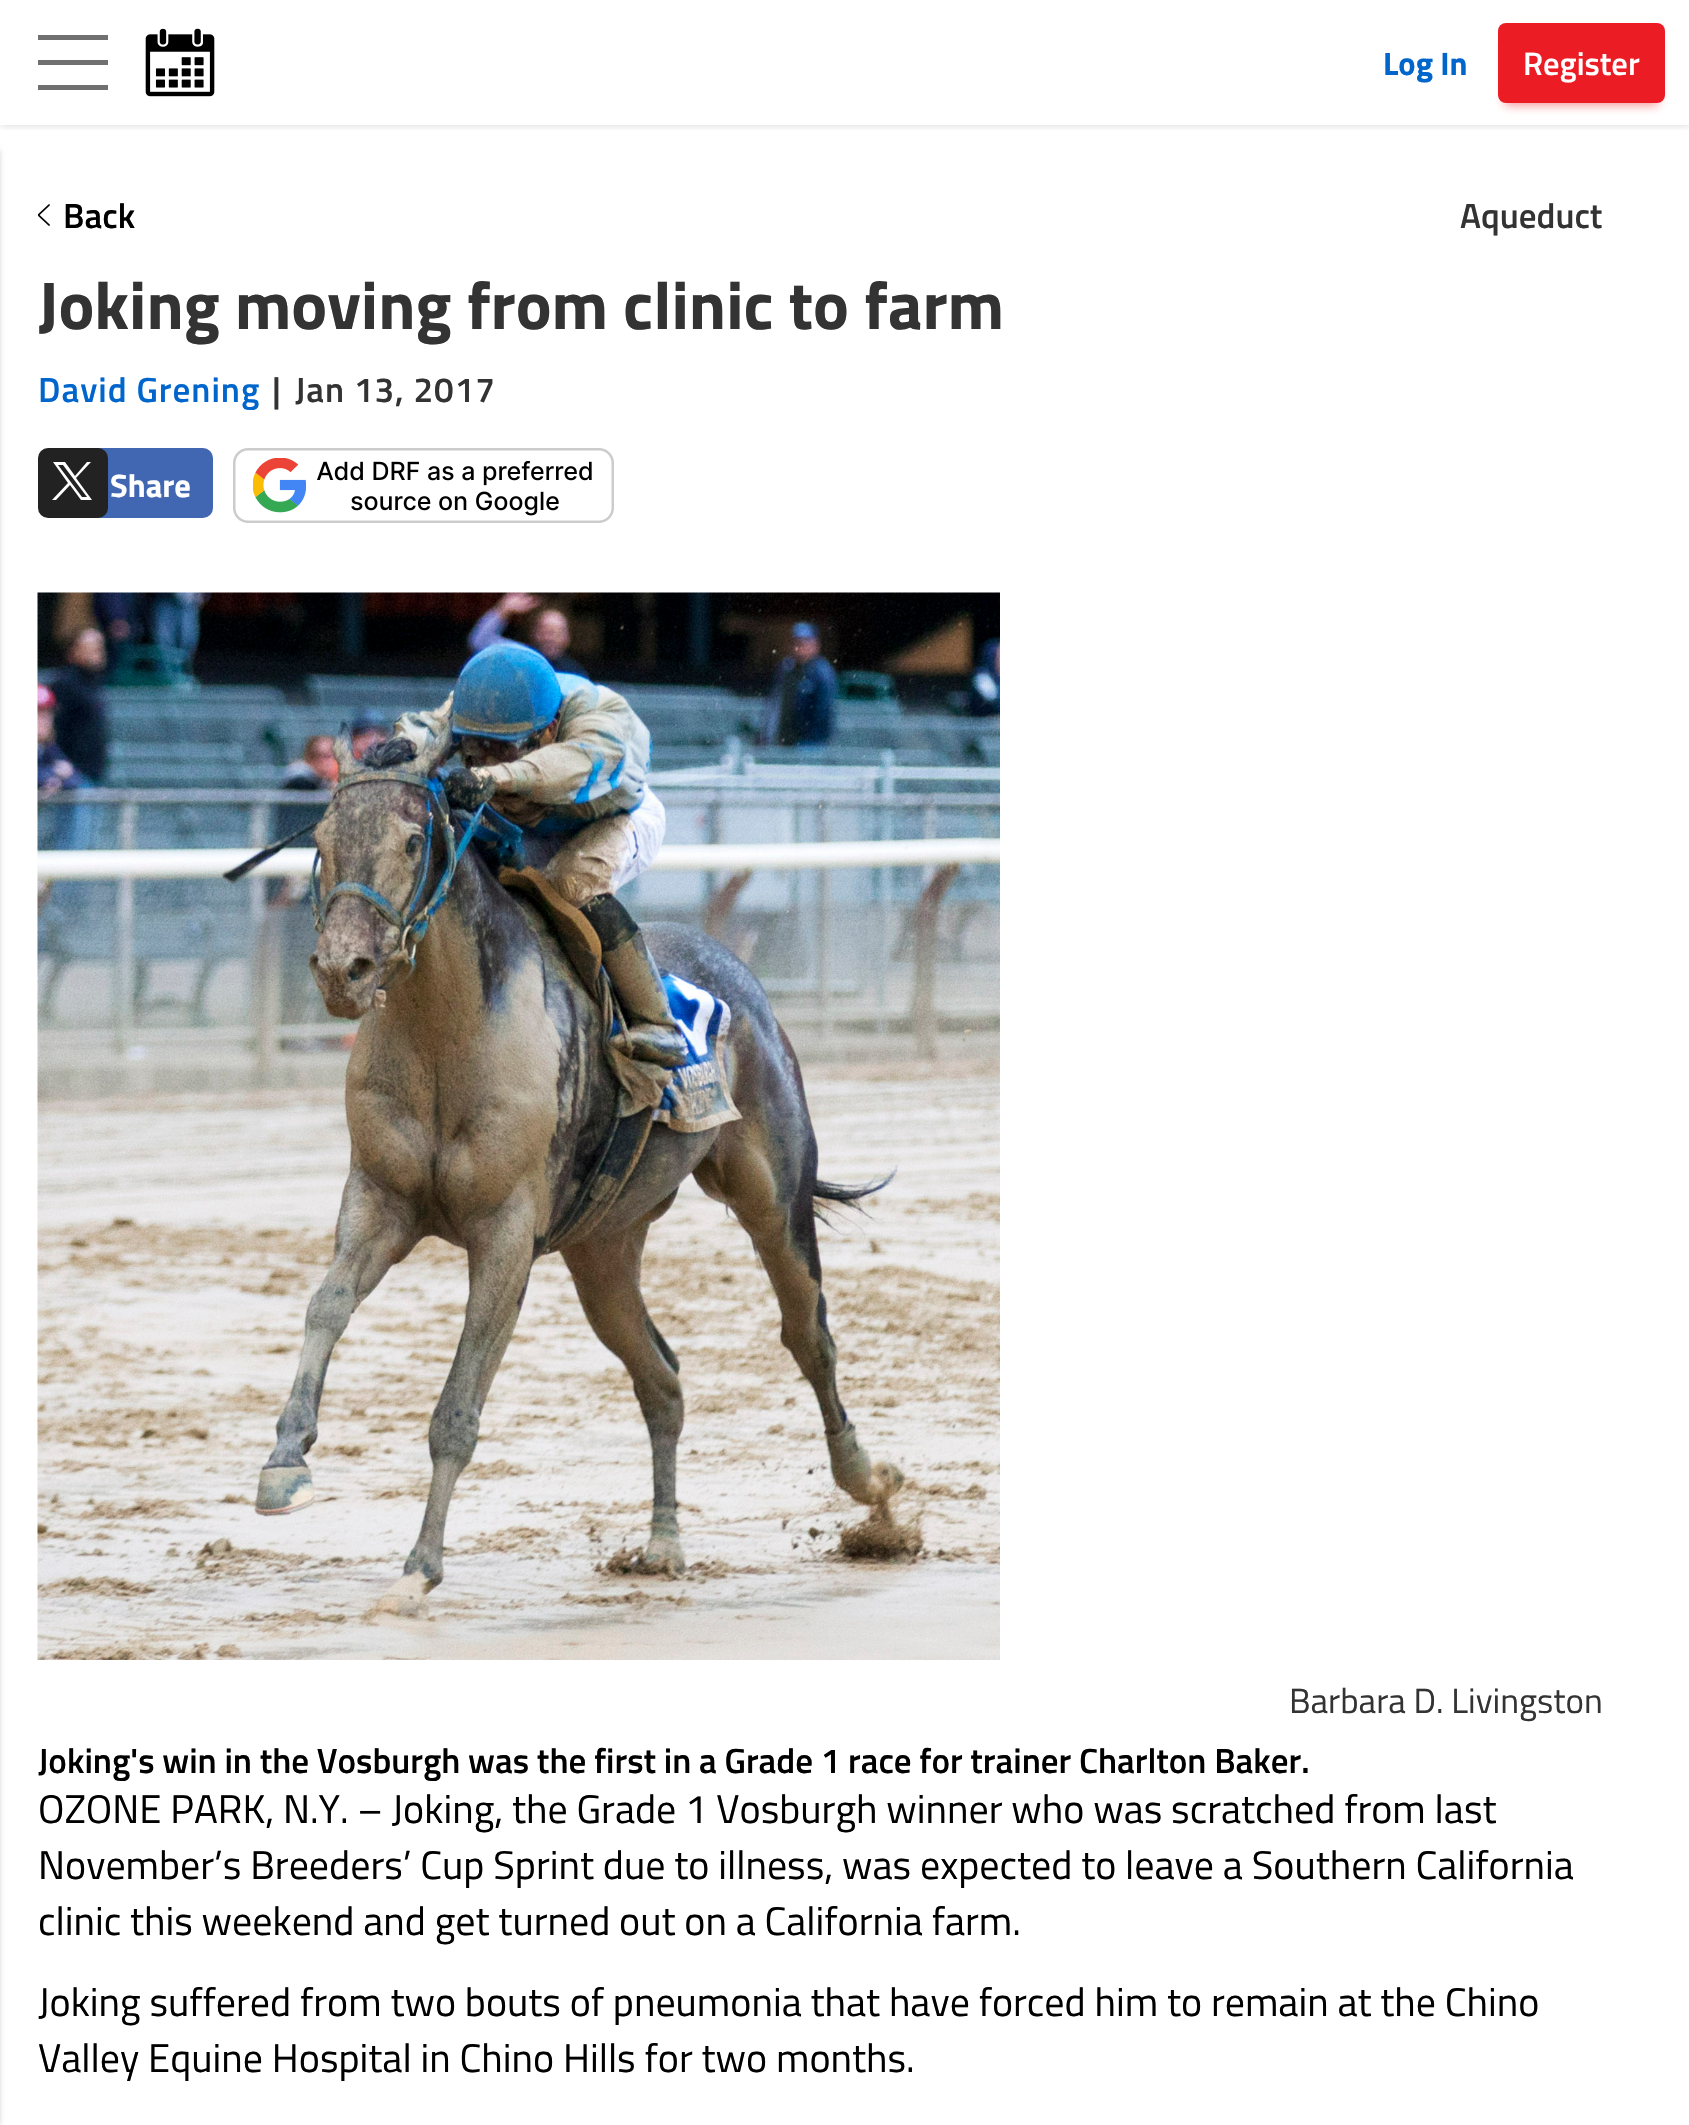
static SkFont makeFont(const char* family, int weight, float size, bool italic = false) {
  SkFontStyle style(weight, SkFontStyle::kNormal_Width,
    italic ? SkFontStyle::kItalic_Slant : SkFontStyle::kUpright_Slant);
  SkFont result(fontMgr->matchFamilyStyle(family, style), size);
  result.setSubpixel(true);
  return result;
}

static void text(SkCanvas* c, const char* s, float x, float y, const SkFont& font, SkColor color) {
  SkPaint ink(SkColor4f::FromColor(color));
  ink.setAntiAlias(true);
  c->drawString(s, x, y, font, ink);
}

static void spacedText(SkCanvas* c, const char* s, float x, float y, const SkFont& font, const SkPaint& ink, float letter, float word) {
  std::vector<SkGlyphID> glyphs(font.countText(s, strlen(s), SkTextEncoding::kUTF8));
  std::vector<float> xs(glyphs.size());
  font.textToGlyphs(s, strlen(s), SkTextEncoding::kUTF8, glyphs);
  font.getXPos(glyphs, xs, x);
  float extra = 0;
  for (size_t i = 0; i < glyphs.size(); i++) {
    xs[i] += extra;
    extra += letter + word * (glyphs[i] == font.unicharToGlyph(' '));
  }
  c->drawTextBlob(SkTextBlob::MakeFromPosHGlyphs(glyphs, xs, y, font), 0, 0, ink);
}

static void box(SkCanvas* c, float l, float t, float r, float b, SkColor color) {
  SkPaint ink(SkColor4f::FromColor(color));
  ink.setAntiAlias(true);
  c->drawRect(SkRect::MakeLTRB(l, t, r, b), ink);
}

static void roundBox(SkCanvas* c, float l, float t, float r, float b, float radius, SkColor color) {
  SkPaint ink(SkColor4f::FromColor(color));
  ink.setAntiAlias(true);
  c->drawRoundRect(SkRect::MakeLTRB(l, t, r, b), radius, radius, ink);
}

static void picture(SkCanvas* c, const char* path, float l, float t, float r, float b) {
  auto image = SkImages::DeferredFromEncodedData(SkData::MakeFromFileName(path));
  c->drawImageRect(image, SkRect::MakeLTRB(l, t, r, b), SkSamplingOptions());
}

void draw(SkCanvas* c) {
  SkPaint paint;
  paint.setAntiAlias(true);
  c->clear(0xffffffff);
  c->save();
  c->clipRect(SkRect::MakeLTRB(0, 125, 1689, 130));
  paint.setColor(0x29000000);
  paint.setMaskFilter(SkMaskFilter::MakeBlur(kNormal_SkBlurStyle, 4));
  c->drawRect(SkRect::MakeLTRB(0, 0, 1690, 125), paint);
  paint.setMaskFilter(nullptr);
  c->restore();
  box(c, 38, 60, 108, 65, 0xff707070);
  box(c, 38, 35, 108, 40, 0xff707070);
  box(c, 38, 85, 108, 90, 0xff707070);
  picture(c, "img_01.png", 145, 28, 215, 97);
  SkFont face1 = makeFont("Titillium Web", 700, 32.5f);
  text(c, "Log In", 1383, 75, face1, 0xff0066cc);
  paint.setColor(0x80ec1c24);
  paint.setMaskFilter(SkMaskFilter::MakeBlur(kNormal_SkBlurStyle, 5));
  c->drawRect(SkRect::MakeLTRB(1505, 40, 1658, 105), paint);
  paint.setMaskFilter(nullptr);
  roundBox(c, 1498, 23, 1665, 103, 8, 0xffec1c24);
  SkFont face2 = makeFont("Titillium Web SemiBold", 600, 32.5f);
  text(c, "Register", 1523, 75, face2, 0xffffffff);
  paint.setColor(0x29000000);
  paint.setMaskFilter(SkMaskFilter::MakeBlur(kNormal_SkBlurStyle, 2.5f));
  c->drawRect(SkRect::MakeLTRB(-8, 150, 0, 2125), paint);
  paint.setMaskFilter(nullptr);
  picture(c, "img_02.png", 38, 204, 50, 226);
  SkFont face3 = makeFont("Titillium Web SemiBold", 600, 35);
  text(c, "Back", 63, 228, face3, 0xff000000);
  text(c, "Aqueduct", 1460, 228, face3, 0xff333333);
  SkFont face4 = makeFont("Titillium Web", 700, 67.5f);
  text(c, "Joking moving from clinic to farm", 38, 329, face4, 0xff333333);
  paint.setColor(0xff0066cc);
  spacedText(c, "David Grening", 38, 402, face3, paint, 1, 0);
  paint.setColor(0xff333333);
  spacedText(c, "|", 272, 402, face3, paint, 1, 0);
  spacedText(c, "Jan 13, 2017", 295, 402, face3, paint, 1, 0);
  paint.setColor(0xff4267b2);
  c->drawRoundRect(SkRect::MakeLTRB(89.5f, 449.5f, 211.5f, 516.5f), 8.5f, 8.5f, paint);
  paint.setStyle(SkPaint::kStroke_Style);
  paint.setStrokeWidth(3);
  c->drawRoundRect(SkRect::MakeLTRB(89.5f, 449.5f, 211.5f, 516.5f), 8.5f, 8.5f, paint);
  roundBox(c, 38, 448, 108, 518, 10, 0xff222222);
  paint.setStyle(SkPaint::kFill_Style);
  paint.setColor(0xffffffff);
  c->drawPath(SkPathBuilder().moveTo(53, 462).lineTo(68, 483).lineTo(52, 500).lineTo(56, 500).lineTo(70, 485).lineTo(81, 500).lineTo(92, 500).lineTo(76, 478).lineTo(91, 462).lineTo(87, 462).lineTo(75, 476).lineTo(65, 462).close().moveTo(58, 465).lineTo(63, 465).lineTo(87, 497).lineTo(82, 497).close().detach(), paint);
  text(c, "Share", 110, 497, face1, 0xffffffff);
  picture(c, "img_03.png", 233, 448, 614, 523);
  picture(c, "img_04.png", 37, 592, 1000, 1660);
  SkFont face5 = makeFont("Titillium Web", 400, 35);
  text(c, "Barbara D. Livingston", 1289, 1713, face5, 0xff333333);
  text(c, "Joking's win in the Vosburgh was the first in a Grade 1 race for trainer Charlton Baker.", 38, 1773, face3, 0xff000000);
  SkFont face6 = makeFont("Titillium Web", 400, 40);
  text(c, "OZONE PARK, N.Y. – Joking, the Grade 1 Vosburgh winner who was scratched from last", 38, 1823, face6, 0xff000000);
  text(c, "November’s Breeders’ Cup Sprint due to illness, was expected to leave a Southern California", 38, 1879, face6, 0xff000000);
  text(c, "clinic this weekend and get turned out on a California farm.", 38, 1935, face6, 0xff000000);
  text(c, "Joking suffered from two bouts of pneumonia that have forced him to remain at the Chino", 38, 2016, face6, 0xff000000);
  text(c, "Valley Equine Hospital in Chino Hills for two months.", 38, 2072, face6, 0xff000000);
}
